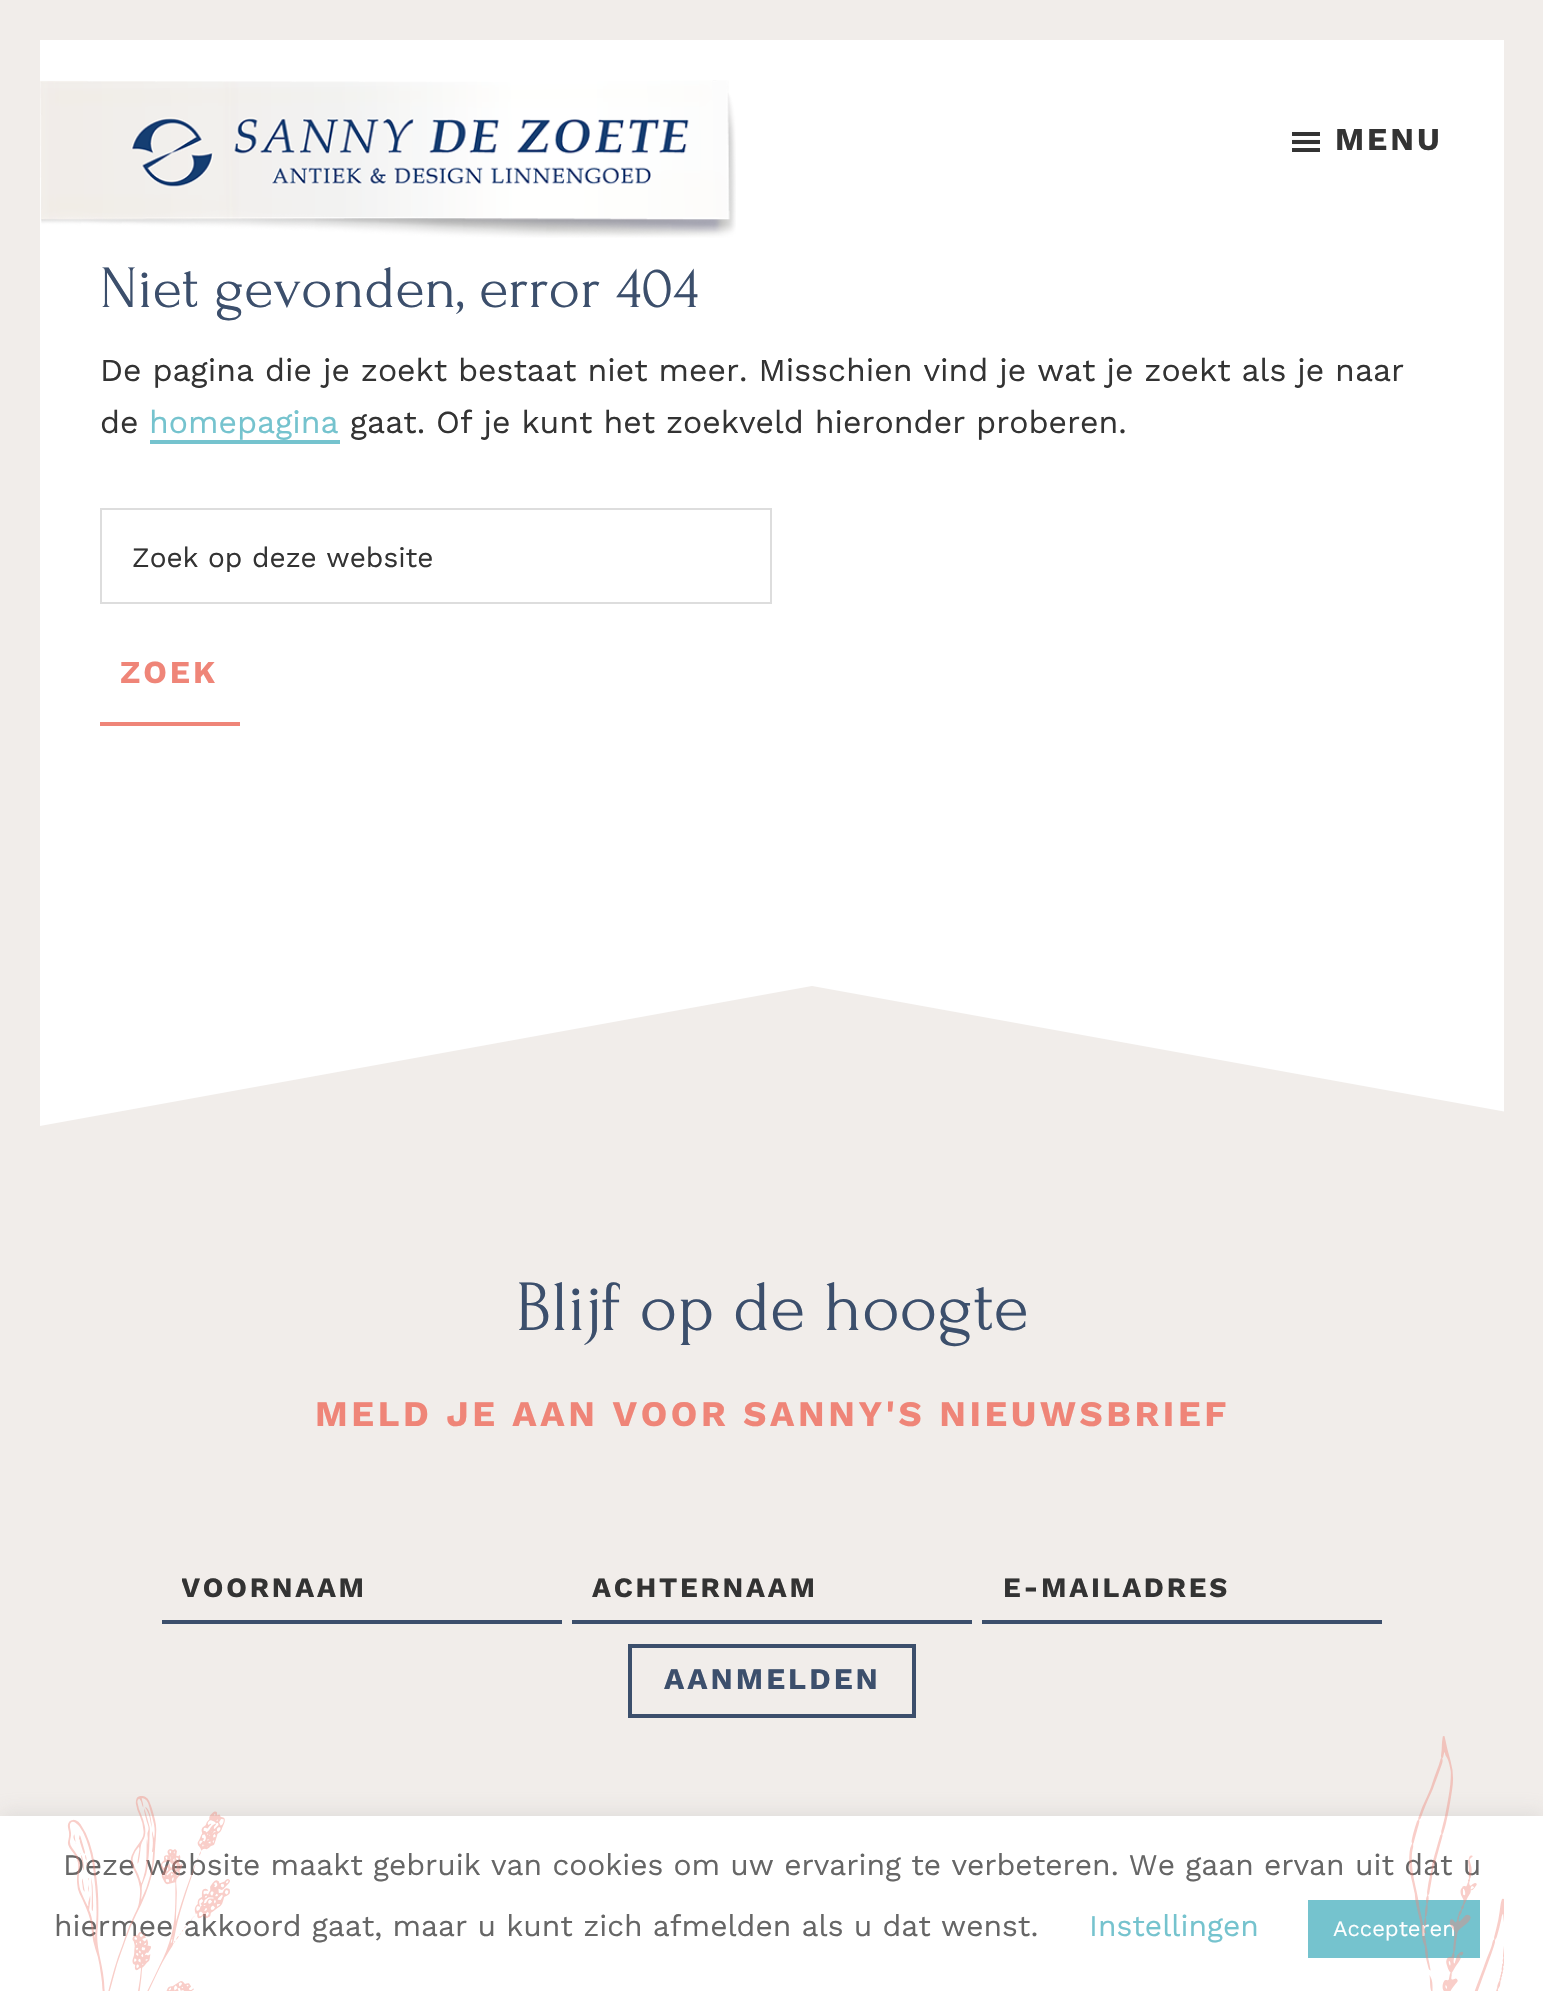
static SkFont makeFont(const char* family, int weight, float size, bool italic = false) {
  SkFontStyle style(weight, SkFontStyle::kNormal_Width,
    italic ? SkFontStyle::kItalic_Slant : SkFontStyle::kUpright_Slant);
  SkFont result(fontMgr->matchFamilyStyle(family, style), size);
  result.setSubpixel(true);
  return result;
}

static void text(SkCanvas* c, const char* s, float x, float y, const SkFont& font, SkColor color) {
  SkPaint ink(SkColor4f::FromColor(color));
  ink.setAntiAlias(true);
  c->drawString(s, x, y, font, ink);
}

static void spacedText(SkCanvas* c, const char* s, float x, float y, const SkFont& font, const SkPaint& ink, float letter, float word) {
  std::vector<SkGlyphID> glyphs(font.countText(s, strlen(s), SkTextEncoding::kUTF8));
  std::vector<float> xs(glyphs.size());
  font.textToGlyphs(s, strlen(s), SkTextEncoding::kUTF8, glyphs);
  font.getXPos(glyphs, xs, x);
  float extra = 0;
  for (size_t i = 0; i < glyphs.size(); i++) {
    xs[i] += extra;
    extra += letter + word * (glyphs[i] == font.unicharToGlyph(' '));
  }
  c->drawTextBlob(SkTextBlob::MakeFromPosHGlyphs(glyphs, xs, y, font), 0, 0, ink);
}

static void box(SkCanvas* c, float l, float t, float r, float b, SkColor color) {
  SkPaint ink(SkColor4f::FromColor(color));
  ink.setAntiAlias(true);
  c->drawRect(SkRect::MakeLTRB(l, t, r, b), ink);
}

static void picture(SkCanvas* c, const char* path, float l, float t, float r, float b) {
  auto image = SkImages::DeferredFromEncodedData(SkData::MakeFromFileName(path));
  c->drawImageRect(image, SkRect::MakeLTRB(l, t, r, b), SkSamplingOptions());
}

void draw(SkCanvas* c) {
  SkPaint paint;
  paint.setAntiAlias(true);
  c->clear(0xffffffff);
  paint.setStyle(SkPaint::kStroke_Style);
  paint.setStrokeWidth(40);
  paint.setColor(0xfff1edea);
  c->drawRect(SkRect::MakeLTRB(20, 20, 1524, 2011), paint);
  picture(c, "img_01.png", 40, 80, 736, 238);
  picture(c, "img_02.png", 1292, 132, 1320, 152);
  SkFont face1 = makeFont("Work Sans", 700, 32);
  paint.setStyle(SkPaint::kFill_Style);
  paint.setColor(0xff333333);
  spacedText(c, "MENU", 1335, 150, face1, paint, 3, 0);
  SkFont face2 = makeFont("Forum", 400, 60);
  text(c, "Niet gevonden, error 404", 100, 307, face2, 0xff3c4f6c);
  SkFont face3 = makeFont("Work Sans", 400, 32);
  text(c, "De pagina die je zoekt bestaat niet meer. Misschien vind je wat je zoekt als je naar", 100, 381, face3, 0xff333333);
  text(c, "de", 100, 433, face3, 0xff333333);
  text(c, "homepagina", 149, 433, face3, 0xff75c3ce);
  box(c, 150, 440, 340, 444, 0xff75c3ce);
  text(c, "gaat. Of je kunt het zoekveld hieronder proberen.", 350, 433, face3, 0xff333333);
  paint.setStyle(SkPaint::kStroke_Style);
  paint.setStrokeWidth(2);
  paint.setColor(0xffdddddd);
  c->drawRect(SkRect::MakeLTRB(101, 509, 771, 603), paint);
  c->save();
  c->clipRect(SkRect::MakeLTRB(132, 540, 740, 572));
  SkFont face4 = makeFont("Work Sans", 400, 28);
  text(c, "Zoek op deze website", 132, 567, face4, 0xff333333);
  c->restore();
  box(c, 100, 722, 240, 726, 0xffef8578);
  paint.setStyle(SkPaint::kFill_Style);
  paint.setColor(0xffef8578);
  spacedText(c, "ZOEK", 120, 683, face1, paint, 3, 0);
  box(c, 40, 1126, 1504, 1816, 0xfff1edea);
  c->save();
  c->clipRect(SkRect::MakeLTRB(40, 40, 1504, 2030));
  paint.setColor(0xfff1edea);
  c->drawPath(SkPathBuilder().moveTo(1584, 1126).lineTo(40, 1126).lineTo(812, 986).close().detach(), paint);
  c->restore();
  SkFont face5 = makeFont("Forum", 400, 72);
  text(c, "Blijf op de hoogte", 516, 1330, face5, 0xff3c4f6c);
  SkFont face6 = makeFont("Work Sans", 700, 36);
  paint.setColor(0xffef8578);
  spacedText(c, "MELD JE AAN VOOR SANNY'S NIEUWSBRIEF", 315, 1426, face6, paint, 3.6f, 0);
  box(c, 162, 1620, 562, 1624, 0xff3c4f6c);
  c->save();
  c->clipRect(SkRect::MakeLTRB(182, 1572, 542, 1604));
  SkFont face7 = makeFont("Work Sans", 700, 28);
  paint.setColor(0xff333333);
  spacedText(c, "VOORNAAM", 181, 1597, face7, paint, 2.75f, 0);
  c->restore();
  box(c, 572, 1620, 972, 1624, 0xff3c4f6c);
  spacedText(c, "ACHTERNAAM", 592, 1597, face7, paint, 2.75f, 0);
  box(c, 982, 1620, 1382, 1624, 0xff3c4f6c);
  spacedText(c, "E-MAILADRES", 1003, 1597, face7, paint, 2.75f, 0);
  paint.setStyle(SkPaint::kStroke_Style);
  paint.setStrokeWidth(4);
  paint.setColor(0xff3c4f6c);
  c->drawRect(SkRect::MakeLTRB(630, 1646, 914, 1716), paint);
  SkFont face8 = makeFont("Work Sans", 700, 30);
  paint.setStyle(SkPaint::kFill_Style);
  spacedText(c, "AANMELDEN", 664, 1689, face8, paint, 3, 0);
  paint.setColor(0x4dacabab);
  paint.setMaskFilter(SkMaskFilter::MakeBlur(kNormal_SkBlurStyle, 10));
  c->drawRect(SkRect::MakeLTRB(0, 1814, 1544, 1990), paint);
  paint.setMaskFilter(nullptr);
  box(c, 0, 1816, 1543, 1991, 0xffffffff);
  SkFont face9 = makeFont("Work Sans", 400, 30);
  text(c, "Deze website maakt gebruik van cookies om uw ervaring te verbeteren. We gaan ervan uit dat u", 63, 1875, face9, 0xff666666);
  text(c, "hiermee akkoord gaat, maar u kunt zich afmelden als u dat wenst.", 54, 1936, face9, 0xff666666);
  picture(c, "img_03.png", 67, 1796, 230, 1991);
  box(c, 1308, 1900, 1480, 1958, 0xff75c3ce);
  SkFont face10 = makeFont("Work Sans", 400, 22);
  text(c, "Accepteren", 1333, 1936, face10, 0xffffffff);
  picture(c, "img_04.png", 1409, 1736, 1504, 1991);
  text(c, "Instellingen", 1089, 1936, face9, 0xff75c3ce);
}
